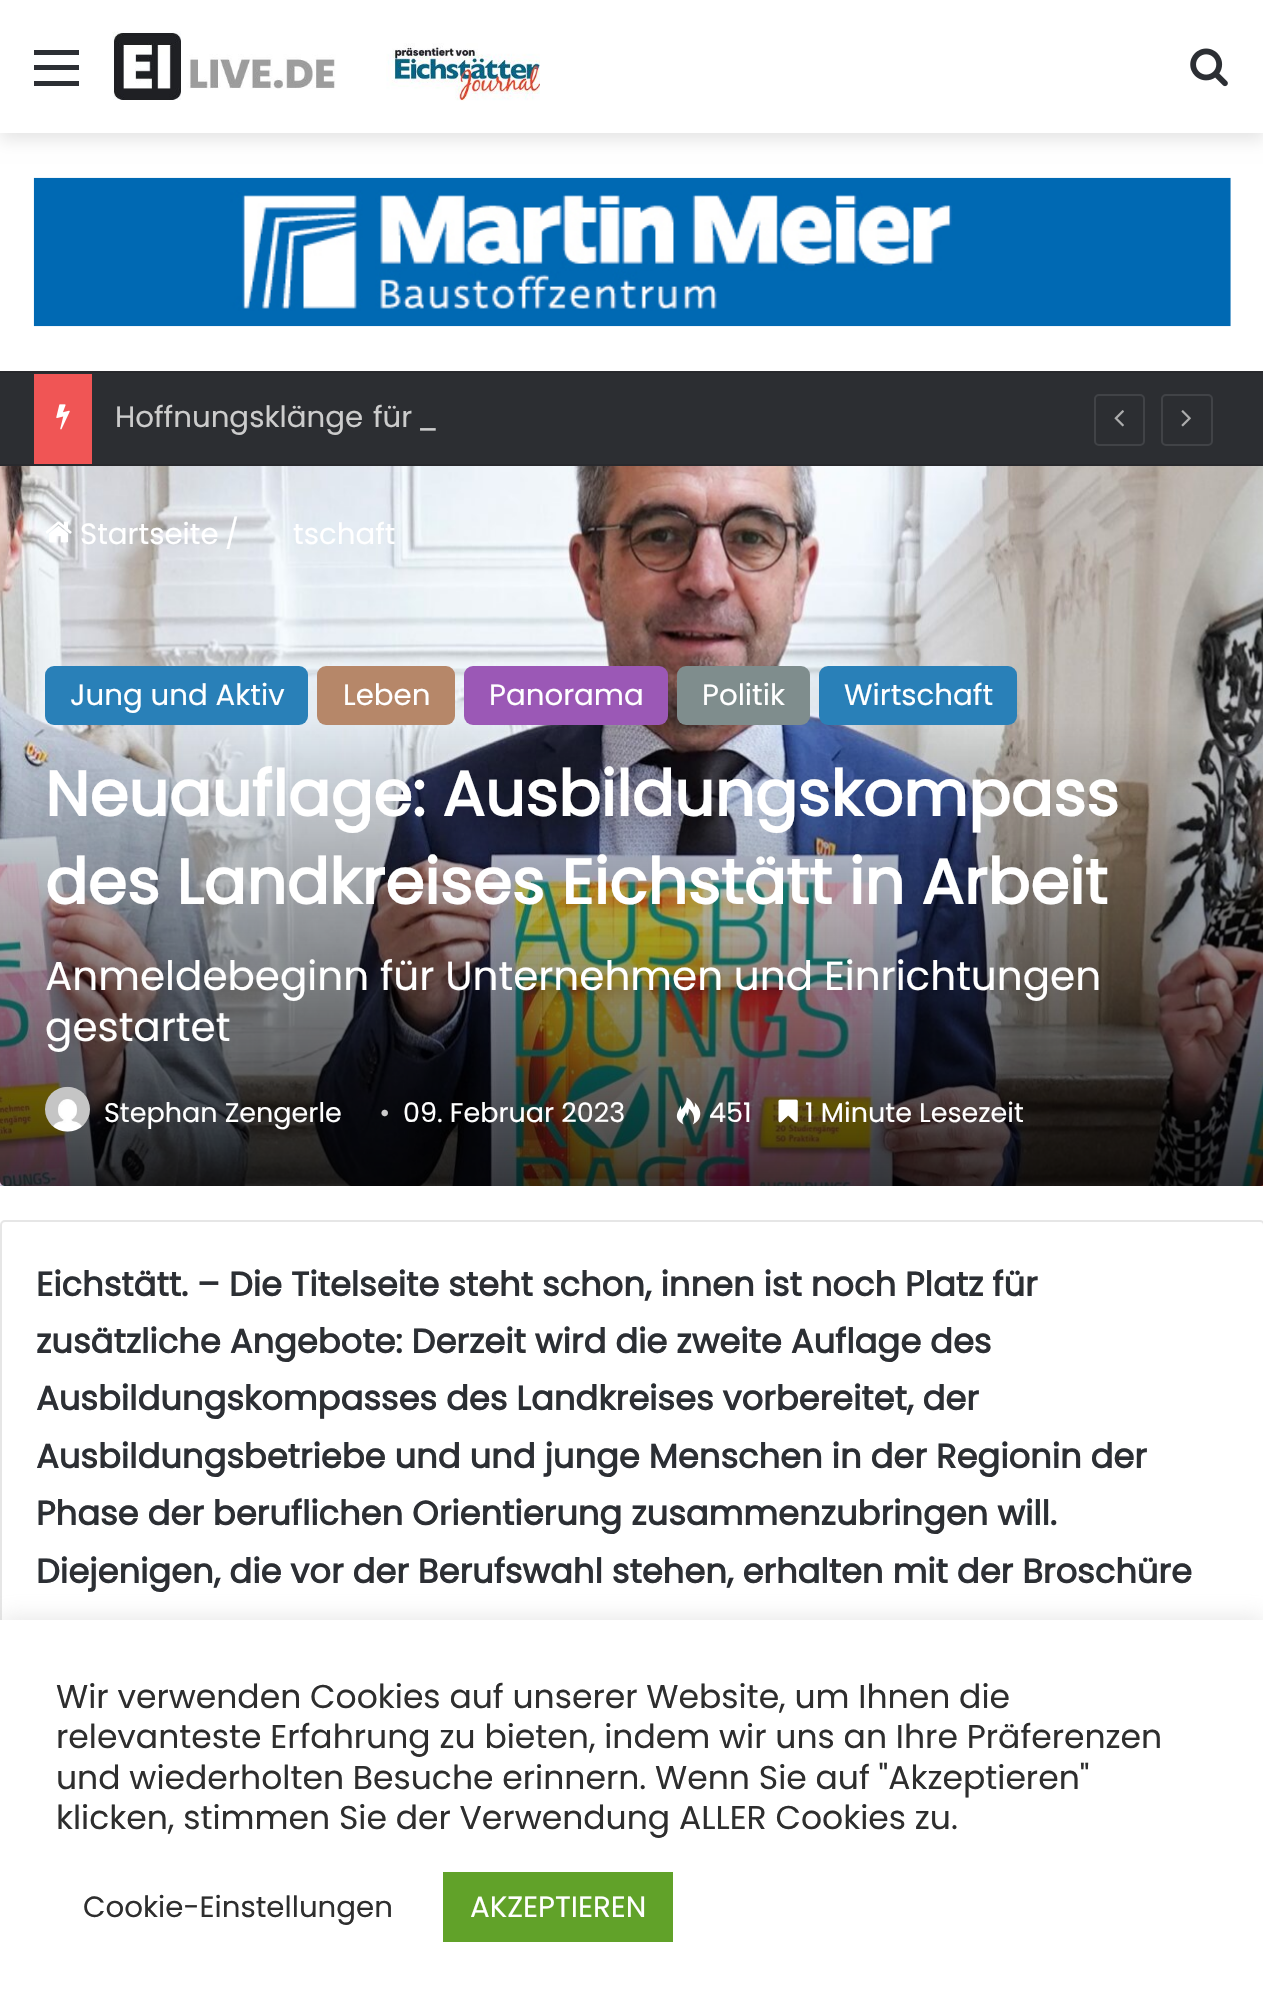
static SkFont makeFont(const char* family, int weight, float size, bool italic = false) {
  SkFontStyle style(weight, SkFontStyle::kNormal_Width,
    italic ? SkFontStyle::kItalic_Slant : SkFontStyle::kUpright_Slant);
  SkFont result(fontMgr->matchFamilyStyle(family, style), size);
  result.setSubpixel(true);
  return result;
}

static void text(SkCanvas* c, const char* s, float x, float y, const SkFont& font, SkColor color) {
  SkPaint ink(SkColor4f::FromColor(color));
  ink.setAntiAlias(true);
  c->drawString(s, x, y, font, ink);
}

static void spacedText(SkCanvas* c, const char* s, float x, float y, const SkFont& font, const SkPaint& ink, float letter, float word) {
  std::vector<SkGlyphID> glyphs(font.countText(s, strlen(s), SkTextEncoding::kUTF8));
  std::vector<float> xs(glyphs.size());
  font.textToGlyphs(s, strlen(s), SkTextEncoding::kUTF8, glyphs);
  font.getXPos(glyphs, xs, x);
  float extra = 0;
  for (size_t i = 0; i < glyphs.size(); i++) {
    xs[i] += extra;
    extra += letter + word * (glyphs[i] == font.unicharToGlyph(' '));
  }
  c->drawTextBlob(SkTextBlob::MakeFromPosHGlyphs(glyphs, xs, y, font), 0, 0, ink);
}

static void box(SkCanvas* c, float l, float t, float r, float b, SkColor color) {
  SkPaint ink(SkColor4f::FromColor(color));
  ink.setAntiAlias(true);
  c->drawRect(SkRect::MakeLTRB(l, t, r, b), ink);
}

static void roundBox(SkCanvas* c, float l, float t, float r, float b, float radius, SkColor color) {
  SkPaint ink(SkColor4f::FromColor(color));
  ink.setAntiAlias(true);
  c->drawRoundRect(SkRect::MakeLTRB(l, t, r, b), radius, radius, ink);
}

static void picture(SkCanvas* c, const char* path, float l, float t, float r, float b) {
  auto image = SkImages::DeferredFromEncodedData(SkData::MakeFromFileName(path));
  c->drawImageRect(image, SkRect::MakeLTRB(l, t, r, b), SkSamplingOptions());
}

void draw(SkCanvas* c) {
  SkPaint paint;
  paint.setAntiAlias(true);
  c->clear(0xffffffff);
  paint.setColor(0x1a000000);
  paint.setMaskFilter(SkMaskFilter::MakeBlur(kNormal_SkBlurStyle, 8));
  c->drawRect(SkRect::MakeLTRB(0, 7, 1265, 140), paint);
  paint.setMaskFilter(nullptr);
  box(c, 0, 0, 1263, 133, 0xffffffff);
  box(c, 34, 65, 79, 70, 0xff2c2f34);
  box(c, 34, 50, 79, 55, 0xff2c2f34);
  box(c, 34, 81, 79, 86, 0xff2c2f34);
  picture(c, "img_01.png", 112, 31, 540, 101);
  picture(c, "img_02.png", 1190, 48, 1228, 87);
  picture(c, "img_03.png", 33, 177, 1231, 327);
  box(c, 0, 373, 1263, 464, 0xff2c2e32);
  box(c, 0, 371, 1263, 373, 0xff28292d);
  box(c, 0, 464, 1263, 466, 0xff28292d);
  box(c, 34, 374, 92, 464, 0xfff05555);
  picture(c, "img_04.png", 56, 404, 70, 430);
  SkFont face1 = makeFont("Poppins", 400, 29.25f);
  paint.setColor(0xffcccccc);
  spacedText(c, "Hoffnungsklänge für", 115, 427, face1, paint, 0, 2);
  text(c, "_", 417, 427, face1, 0xffcccccc);
  paint.setStyle(SkPaint::kStroke_Style);
  paint.setStrokeWidth(2);
  paint.setColor(0xff414347);
  c->drawRoundRect(SkRect::MakeLTRB(1095, 395, 1144, 445), 4, 4, paint);
  picture(c, "img_05.png", 1114, 410, 1124, 427);
  c->drawRoundRect(SkRect::MakeLTRB(1162, 395, 1212, 445), 4, 4, paint);
  picture(c, "img_06.png", 1181, 410, 1191, 427);
  picture(c, "img_07.png", 0, 466, 1263, 1186);
  picture(c, "img_08.png", 46, 521, 72, 543);
  text(c, "Startseite", 80, 544, face1, 0xffffffff);
  text(c, "/", 225, 544, face1, 0xffffffff);
  text(c, "tschaft", 293, 544, face1, 0xffffffff);
  roundBox(c, 45, 666, 308, 725, 9, 0xff2980b8);
  text(c, "Jung und Aktiv", 70, 705, face1, 0xffffffff);
  roundBox(c, 317, 666, 455, 725, 9, 0xffb68769);
  text(c, "Leben", 343, 705, face1, 0xffffffff);
  roundBox(c, 464, 666, 668, 725, 9, 0xff9b58b6);
  text(c, "Panorama", 489, 705, face1, 0xffffffff);
  roundBox(c, 677, 666, 810, 725, 9, 0xff7f8d8d);
  text(c, "Politik", 702, 705, face1, 0xffffffff);
  roundBox(c, 819, 666, 1017, 725, 9, 0xff2980b8);
  text(c, "Wirtschaft", 844, 705, face1, 0xffffffff);
  SkFont face2 = makeFont("Poppins", 700, 63);
  text(c, "Neuauflage: Ausbildungskompass", 45, 816, face2, 0xffffffff);
  text(c, "des Landkreises Eichstätt in Arbeit", 45, 904, face2, 0xffffffff);
  SkFont face3 = makeFont("Poppins", 400, 40.5f);
  text(c, "Anmeldebeginn für Unternehmen und Einrichtungen", 45, 990, face3, 0xffffffff);
  text(c, "gestartet", 45, 1041, face3, 0xffffffff);
  picture(c, "img_09.png", 45, 1086, 90, 1132);
  SkFont face4 = makeFont("Poppins", 400, 27);
  text(c, "Stephan Zengerle", 104, 1122, face4, 0xffffffff);
  SkFont face5 = makeFont("Liberation Serif", 400, 27);
  text(c, "•", 380, 1122, face5, 0xffcccccc);
  text(c, "09. Februar 2023", 403, 1122, face4, 0xffffffff);
  picture(c, "img_10.png", 676, 1097, 701, 1125);
  text(c, "451", 709, 1122, face4, 0xffffffff);
  picture(c, "img_11.png", 778, 1099, 798, 1123);
  text(c, "1 Minute Lesezeit", 805, 1122, face4, 0xffffffff);
  paint.setColor(0xffe6e6e6);
  c->drawRoundRect(SkRect::MakeLTRB(1, 1221, 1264, 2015), 4, 4, paint);
  SkFont face6 = makeFont("Poppins", 700, 33.75f);
  text(c, "Eichstätt. – Die Titelseite steht schon, innen ist noch Platz für", 36, 1296, face6, 0xff2c2f34);
  text(c, "zusätzliche Angebote: Derzeit wird die zweite Auflage des", 36, 1353, face6, 0xff2c2f34);
  text(c, "Ausbildungskompasses des Landkreises vorbereitet, der", 36, 1410, face6, 0xff2c2f34);
  text(c, "Ausbildungsbetriebe und und junge Menschen in der Regionin der", 36, 1468, face6, 0xff2c2f34);
  text(c, "Phase der beruflichen Orientierung zusammenzubringen will.", 36, 1525, face6, 0xff2c2f34);
  text(c, "Diejenigen, die vor der Berufswahl stehen, erhalten mit der Broschüre", 36, 1583, face6, 0xff2c2f34);
  paint.setStyle(SkPaint::kFill_Style);
  paint.setColor(0x4dacabab);
  paint.setMaskFilter(SkMaskFilter::MakeBlur(kNormal_SkBlurStyle, 11));
  c->drawRect(SkRect::MakeLTRB(0, 1618, 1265, 2007), paint);
  paint.setMaskFilter(nullptr);
  box(c, 0, 1620, 1263, 2009, 0xffffffff);
  SkFont face7 = makeFont("Poppins", 400, 33);
  text(c, "Wir verwenden Cookies auf unserer Website, um Ihnen die", 56, 1708, face7, 0xff2e2e2e);
  text(c, "relevanteste Erfahrung zu bieten, indem wir uns an Ihre Präferenzen", 56, 1748, face7, 0xff2e2e2e);
  text(c, "und wiederholten Besuche erinnern. Wenn Sie auf \"Akzeptieren\"", 56, 1789, face7, 0xff2e2e2e);
  text(c, "klicken, stimmen Sie der Verwendung ALLER Cookies zu.", 56, 1829, face7, 0xff2e2e2e);
  text(c, "Cookie-Einstellungen", 83, 1917, face1, 0xff2e2e2e);
  box(c, 443, 1872, 673, 1942, 0xff61a229);
  text(c, "AKZEPTIEREN", 470, 1917, face1, 0xffffffff);
}
